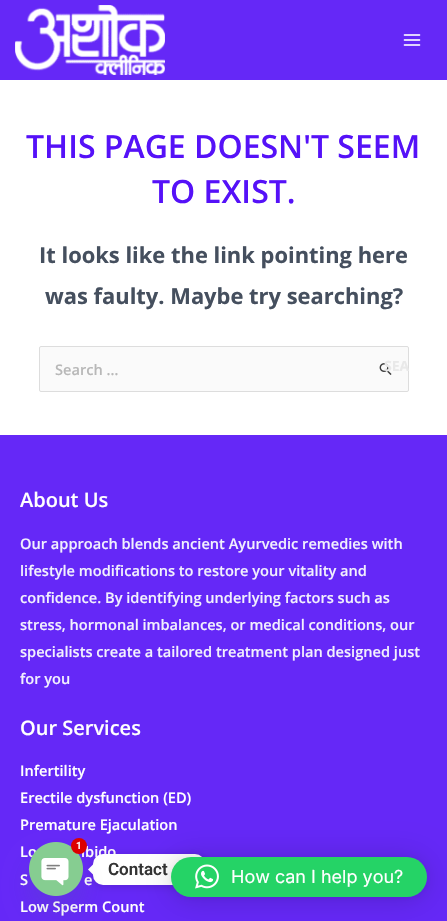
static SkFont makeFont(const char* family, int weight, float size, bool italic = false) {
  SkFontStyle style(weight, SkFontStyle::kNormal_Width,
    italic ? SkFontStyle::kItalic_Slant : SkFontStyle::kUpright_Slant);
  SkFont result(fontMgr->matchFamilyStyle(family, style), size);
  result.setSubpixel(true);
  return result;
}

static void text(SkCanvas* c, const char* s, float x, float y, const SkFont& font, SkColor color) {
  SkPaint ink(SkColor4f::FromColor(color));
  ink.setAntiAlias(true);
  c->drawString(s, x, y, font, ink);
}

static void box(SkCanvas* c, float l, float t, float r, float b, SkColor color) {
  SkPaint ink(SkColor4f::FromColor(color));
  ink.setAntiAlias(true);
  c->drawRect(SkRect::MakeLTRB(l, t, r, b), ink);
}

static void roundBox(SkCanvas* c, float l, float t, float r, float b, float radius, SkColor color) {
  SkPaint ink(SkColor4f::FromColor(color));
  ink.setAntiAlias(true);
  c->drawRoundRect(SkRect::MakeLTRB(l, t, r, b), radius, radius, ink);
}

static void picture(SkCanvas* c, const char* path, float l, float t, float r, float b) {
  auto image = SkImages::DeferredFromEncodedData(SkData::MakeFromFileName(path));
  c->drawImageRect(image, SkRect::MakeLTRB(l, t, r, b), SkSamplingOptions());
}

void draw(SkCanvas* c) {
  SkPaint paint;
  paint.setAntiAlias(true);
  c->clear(0xffffffff);
  box(c, 0, 0, 447, 80, 0xff6528f7);
  picture(c, "img_01.png", 15, 5, 165, 75);
  picture(c, "img_02.png", 403, 34, 421, 46);
  SkFont face1 = makeFont("Open Sans", 600, 32);
  text(c, "THIS PAGE DOESN'T SEEM", 26, 158, face1, 0xff5511f8);
  text(c, "TO EXIST.", 152, 203, face1, 0xff5511f8);
  SkFont face2 = makeFont("Open Sans", 700, 21.9f);
  text(c, "It looks like the link pointing here", 39, 263, face2, 0xff454f5e);
  text(c, "was faulty. Maybe try searching?", 45, 304, face2, 0xff454f5e);
  paint.setColor(0xfffafafa);
  c->drawRoundRect(SkRect::MakeLTRB(39.5f, 346.5f, 408.5f, 391.5f), 1.5f, 1.5f, paint);
  paint.setStyle(SkPaint::kStroke_Style);
  paint.setStrokeWidth(1);
  paint.setColor(0xffdddddd);
  c->drawRoundRect(SkRect::MakeLTRB(39.5f, 346.5f, 408.5f, 391.5f), 1.5f, 1.5f, paint);
  SkFont face3 = makeFont("Open Sans", 600, 14.6f);
  text(c, "Search …", 55, 375, face3, 0xffb8b8b8);
  picture(c, "img_03.png", 379, 363, 392, 375);
  SkFont face4 = makeFont("Open Sans", 700, 14);
  text(c, "SEA", 384, 371, face4, 0xffe9e9e9);
  box(c, 0, 435, 447, 921, 0xff6528f7);
  SkFont face5 = makeFont("Open Sans", 600, 20);
  text(c, "About Us", 20, 507, face5, 0xffffffff);
  text(c, "Our approach blends ancient Ayurvedic remedies with", 20, 549, face3, 0xfff2f0fe);
  text(c, "lifestyle modifications to restore your vitality and", 20, 576, face3, 0xfff2f0fe);
  text(c, "confidence. By identifying underlying factors such as", 20, 603, face3, 0xfff2f0fe);
  text(c, "stress, hormonal imbalances, or medical conditions, our", 20, 630, face3, 0xfff2f0fe);
  text(c, "specialists create a tailored treatment plan designed just", 20, 657, face3, 0xfff2f0fe);
  text(c, "for you", 20, 684, face3, 0xfff2f0fe);
  text(c, "Our Services", 20, 735, face5, 0xffffffff);
  text(c, "Infertility", 20, 776, face3, 0xffffffff);
  text(c, "Erectile dysfunction (ED)", 20, 803, face3, 0xffffffff);
  text(c, "Premature Ejaculation", 20, 830, face3, 0xffffffff);
  text(c, "Lo", 20, 857, face3, 0xffffffff);
  text(c, "ibido", 81, 857, face3, 0xffffffff);
  text(c, "S", 20, 885, face3, 0xffffffff);
  text(c, "e", 84, 885, face3, 0xffffffff);
  text(c, "Low Sperm Count", 20, 912, face3, 0xffffffff);
  paint.setStyle(SkPaint::kFill_Style);
  paint.setColor(0x26000000);
  paint.setMaskFilter(SkMaskFilter::MakeBlur(kNormal_SkBlurStyle, 4));
  c->drawRoundRect(SkRect::MakeLTRB(93, 855, 205, 886), 10, 10, paint);
  paint.setMaskFilter(nullptr);
  roundBox(c, 93, 854, 205, 885, 10, 0xffffffff);
  paint.setColor(0xffffffff);
  c->drawPath(SkPathBuilder().moveTo(93, 864.5f).lineTo(93, 874.5f).lineTo(88, 869.5f).close().detach(), paint);
  paint.setColor(0x2949687e);
  paint.setMaskFilter(SkMaskFilter::MakeBlur(kNormal_SkBlurStyle, 12));
  c->drawRoundRect(SkRect::MakeLTRB(29, 858, 83, 912), 27, 27, paint);
  paint.setMaskFilter(nullptr);
  picture(c, "img_04.png", 29, 842, 83, 896);
  paint.setColor(0xffdd0000);
  c->drawCircle(79, 846, 8, paint);
  SkFont face6 = makeFont("Roboto", 600, 10);
  text(c, "1", 76, 849, face6, 0xffffffff);
  SkFont face7 = makeFont("Roboto", 600, 17);
  text(c, "Contact", 108, 875, face7, 0xff333333);
  paint.setColor(0x29000000);
  paint.setMaskFilter(SkMaskFilter::MakeBlur(kNormal_SkBlurStyle, 16));
  c->drawRoundRect(SkRect::MakeLTRB(171, 859, 427, 899), 20, 20, paint);
  paint.setMaskFilter(nullptr);
  paint.setColor(0x0f000000);
  paint.setMaskFilter(SkMaskFilter::MakeBlur(kNormal_SkBlurStyle, 3));
  c->drawRoundRect(SkRect::MakeLTRB(171, 858, 427, 898), 20, 20, paint);
  paint.setMaskFilter(nullptr);
  roundBox(c, 171, 857, 427, 897, 20, 0xff25d366);
  picture(c, "img_05.png", 195, 864, 219, 889);
  SkFont face8 = makeFont("Inter", 400, 18);
  text(c, "How can I help you?", 231, 883, face8, 0xffffffff);
}
